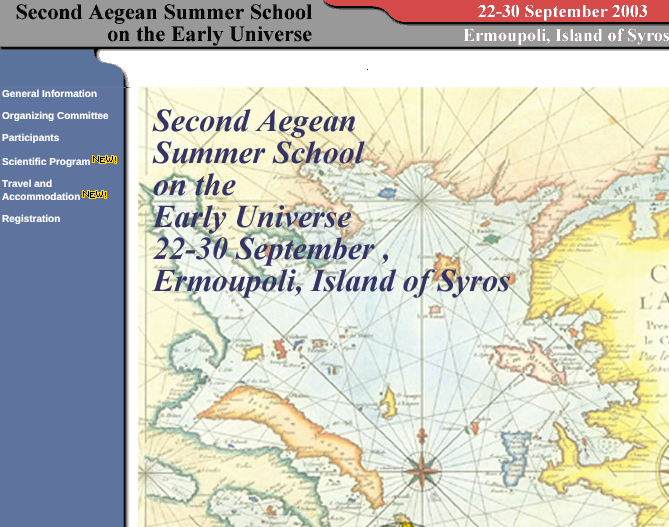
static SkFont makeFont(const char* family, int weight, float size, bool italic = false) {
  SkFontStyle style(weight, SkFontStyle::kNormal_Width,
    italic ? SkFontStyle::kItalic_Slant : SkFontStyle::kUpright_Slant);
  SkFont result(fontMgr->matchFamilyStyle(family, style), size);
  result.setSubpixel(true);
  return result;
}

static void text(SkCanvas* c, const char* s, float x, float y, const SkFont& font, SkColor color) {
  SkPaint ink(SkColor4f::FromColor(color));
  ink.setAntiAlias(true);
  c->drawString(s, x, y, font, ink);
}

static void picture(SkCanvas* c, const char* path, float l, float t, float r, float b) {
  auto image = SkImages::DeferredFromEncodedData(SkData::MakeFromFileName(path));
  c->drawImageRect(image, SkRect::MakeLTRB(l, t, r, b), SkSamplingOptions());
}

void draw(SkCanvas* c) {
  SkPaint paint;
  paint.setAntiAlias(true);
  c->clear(0xffffffff);
  picture(c, "img_01.png", 0, 85, 130, 527);
  picture(c, "img_02.png", 0, 0, 669, 85);
  picture(c, "img_03.png", 2, 87, 132, 88);
  SkFont face1 = makeFont("Liberation Sans", 700, 10);
  text(c, "General Information", 2, 97, face1, 0xffffffff);
  text(c, "Organizing Committee", 2, 119, face1, 0xffffffff);
  text(c, "Participants", 2, 141, face1, 0xffffffff);
  text(c, "Scientific Program", 2, 165, face1, 0xffffffff);
  picture(c, "img_04.png", 92, 155, 117, 164);
  text(c, "Travel and", 2, 187, face1, 0xffffffff);
  text(c, "Accommodation", 2, 200, face1, 0xffffffff);
  picture(c, "img_04.png", 82, 190, 107, 199);
  text(c, "Registration", 2, 222, face1, 0xffffffff);
  picture(c, "img_05.png", 137, 87, 669, 527);
}
